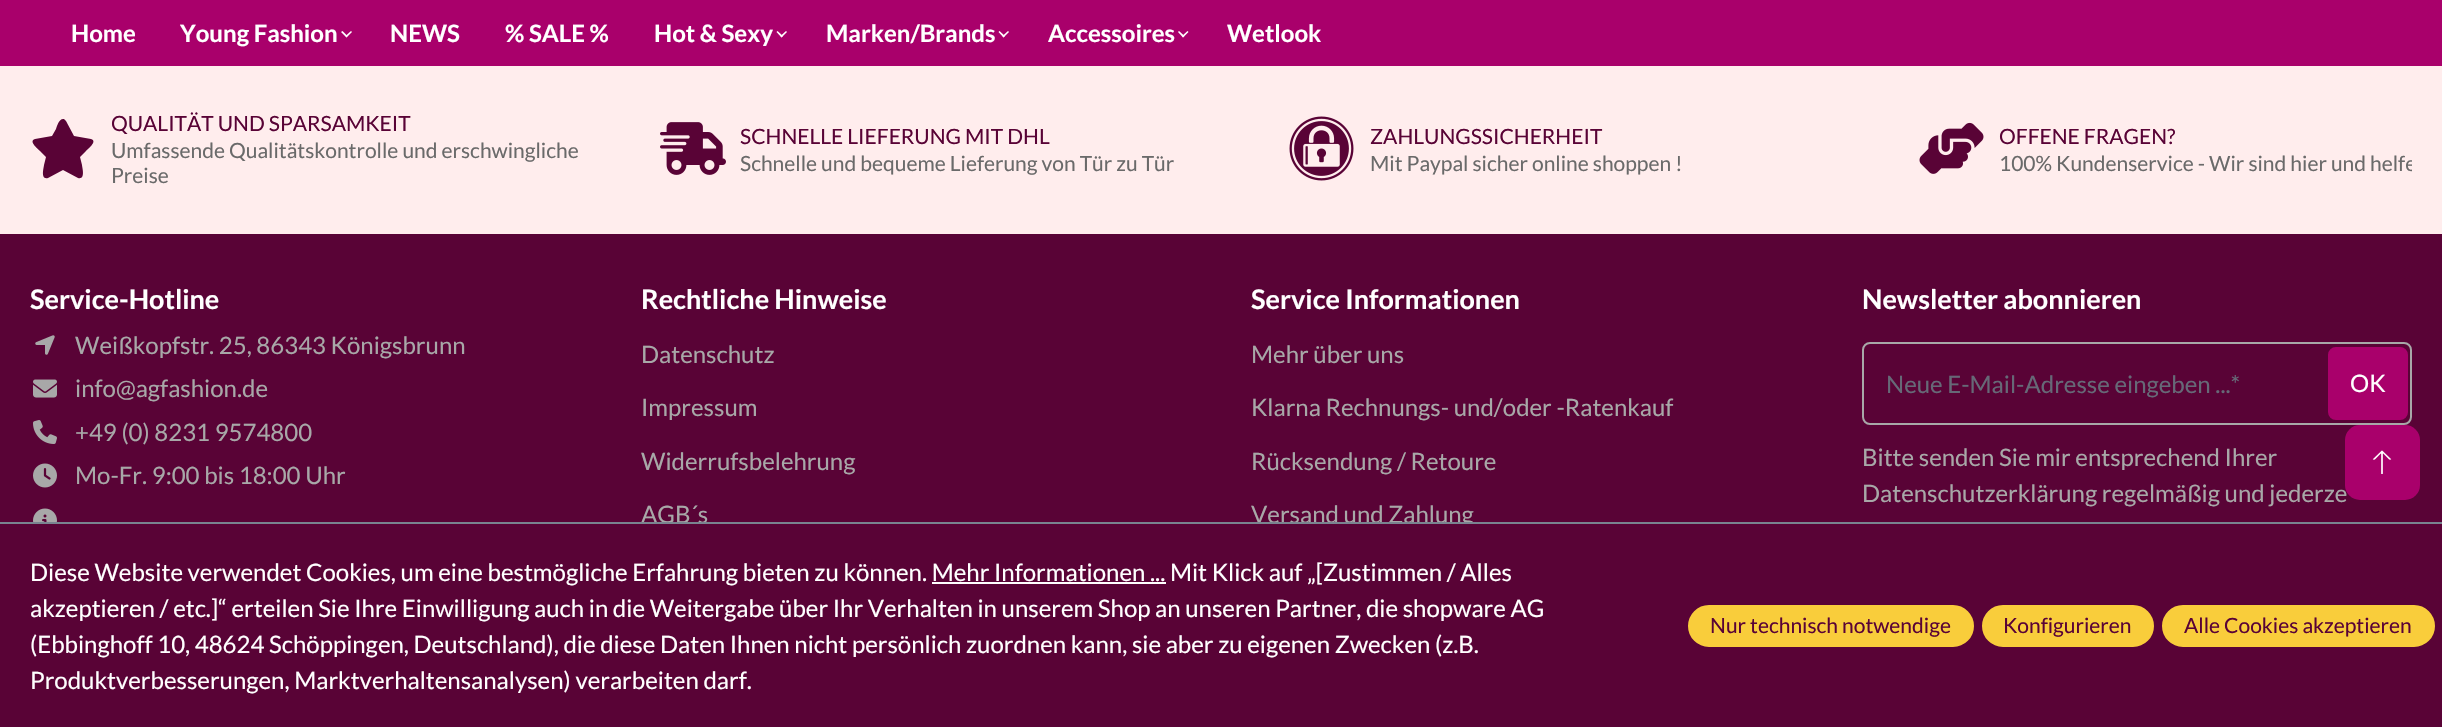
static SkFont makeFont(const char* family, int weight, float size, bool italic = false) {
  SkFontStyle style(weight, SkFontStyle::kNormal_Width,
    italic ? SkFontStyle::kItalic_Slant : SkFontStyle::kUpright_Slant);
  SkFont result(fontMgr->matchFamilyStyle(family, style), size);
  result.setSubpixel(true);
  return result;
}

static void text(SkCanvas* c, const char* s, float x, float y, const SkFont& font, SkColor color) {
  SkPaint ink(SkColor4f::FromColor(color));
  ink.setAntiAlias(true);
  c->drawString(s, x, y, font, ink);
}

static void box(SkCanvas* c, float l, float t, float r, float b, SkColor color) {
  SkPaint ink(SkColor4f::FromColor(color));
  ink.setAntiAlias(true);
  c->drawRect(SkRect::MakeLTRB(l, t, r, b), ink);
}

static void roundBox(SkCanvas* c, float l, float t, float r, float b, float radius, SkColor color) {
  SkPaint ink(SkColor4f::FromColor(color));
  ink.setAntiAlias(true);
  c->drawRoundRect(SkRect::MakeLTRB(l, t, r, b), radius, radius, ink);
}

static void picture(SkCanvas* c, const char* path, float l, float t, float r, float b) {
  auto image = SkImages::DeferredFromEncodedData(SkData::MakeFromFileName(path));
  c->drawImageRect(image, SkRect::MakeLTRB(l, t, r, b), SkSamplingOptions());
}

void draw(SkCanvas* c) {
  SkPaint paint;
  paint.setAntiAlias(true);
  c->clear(0xff590336);
  box(c, 0, 0, 2442, 66, 0xffa9006b);
  SkFont face1 = makeFont("Lato", 700, 24);
  text(c, "Home", 71, 42, face1, 0xffffffff);
  text(c, "Young Fashion", 180, 42, face1, 0xffffffff);
  paint.setColor(0xffffffff);
  c->drawPath(SkPathBuilder().moveTo(351, 31).lineTo(352, 32).lineTo(346.5f, 37.5f).lineTo(345.5f, 36).close().detach(), paint);
  c->drawPath(SkPathBuilder().moveTo(342.5f, 31).lineTo(347.5f, 36).lineTo(346.5f, 37.5f).lineTo(341, 32).close().detach(), paint);
  text(c, "NEWS", 390, 42, face1, 0xffffffff);
  text(c, "% SALE %", 505, 42, face1, 0xffffffff);
  text(c, "Hot & Sexy", 654, 42, face1, 0xffffffff);
  c->drawPath(SkPathBuilder().moveTo(786, 31).lineTo(787, 32).lineTo(781.5f, 37.5f).lineTo(780.5f, 36).close().detach(), paint);
  c->drawPath(SkPathBuilder().moveTo(777.5f, 31).lineTo(783, 36).lineTo(781.5f, 37.5f).lineTo(776.5f, 32).close().detach(), paint);
  text(c, "Marken/Brands", 826, 42, face1, 0xffffffff);
  c->drawPath(SkPathBuilder().moveTo(1008, 31).lineTo(1009, 32).lineTo(1003.5f, 37.5f).lineTo(1002.5f, 36).close().detach(), paint);
  c->drawPath(SkPathBuilder().moveTo(999.5f, 31).lineTo(1005, 36).lineTo(1003.5f, 37.5f).lineTo(998.5f, 32).close().detach(), paint);
  text(c, "Accessoires", 1048, 42, face1, 0xffffffff);
  c->drawPath(SkPathBuilder().moveTo(1187.5f, 31).lineTo(1188.5f, 32).lineTo(1183, 37.5f).lineTo(1182, 36).close().detach(), paint);
  c->drawPath(SkPathBuilder().moveTo(1179, 31).lineTo(1184.5f, 36).lineTo(1183, 37.5f).lineTo(1178, 32).close().detach(), paint);
  text(c, "Wetlook", 1227, 42, face1, 0xffffffff);
  box(c, 0, 66, 2442, 234, 0xffffeded);
  paint.setColor(0xff590336);
  c->drawPath(SkPathBuilder().moveTo(66, 121).lineTo(64, 119).cubicTo(59, 118, 57, 126, 56, 129).lineTo(52, 136).lineTo(35, 139).cubicTo(28, 141, 38, 149, 40, 151).lineTo(46, 157).lineTo(44, 165).cubicTo(44, 167, 40, 180, 48, 178).lineTo(63, 170).lineTo(78, 178).cubicTo(86, 180, 82, 167, 82, 165).lineTo(80, 157).lineTo(86, 151).cubicTo(88, 149, 98, 141, 91, 139).lineTo(74, 136).close().detach(), paint);
  SkFont face2 = makeFont("Lato", 400, 21);
  text(c, "QUALITÄT UND SPARSAMKEIT", 111, 131, face2, 0xff590336);
  text(c, "Umfassende Qualitätskontrolle und erschwingliche", 111, 158, face2, 0xff6a6a6a);
  text(c, "Preise", 111, 183, face2, 0xff6a6a6a);
  picture(c, "img_01.png", 660, 122, 726, 175);
  text(c, "SCHNELLE LIEFERUNG MIT DHL", 740, 144, face2, 0xff590336);
  text(c, "Schnelle und bequeme Lieferung von Tür zu Tür", 740, 171, face2, 0xff6a6a6a);
  picture(c, "img_02.png", 1289, 116, 1354, 181);
  text(c, "ZAHLUNGSSICHERHEIT", 1370, 144, face2, 0xff590336);
  text(c, "Mit Paypal sicher online shoppen !", 1370, 171, face2, 0xff6a6a6a);
  picture(c, "img_03.png", 1919, 122, 1984, 174);
  text(c, "OFFENE FRAGEN?", 1999, 144, face2, 0xff590336);
  c->save();
  c->clipRect(SkRect::MakeLTRB(30, 107, 2412, 189));
  text(c, "100% Kundenservice - Wir sind hier und helfe", 1999, 171, face2, 0xff6a6a6a);
  c->restore();
  SkFont face3 = makeFont("Lato", 700, 27);
  text(c, "Service-Hotline", 30, 309, face3, 0xffffffff);
  picture(c, "img_04.png", 35, 335, 55, 355);
  SkFont face4 = makeFont("Lato", 400, 24);
  text(c, "Weißkopfstr. 25, 86343 Königsbrunn", 75, 354, face4, 0xffa8a8a8);
  picture(c, "img_05.png", 33, 379, 57, 398);
  text(c, "info@agfashion.de", 75, 397, face4, 0xffa8a8a8);
  picture(c, "img_06.png", 33, 420, 57, 444);
  text(c, "+49 (0) 8231 9574800", 75, 441, face4, 0xffa8a8a8);
  picture(c, "img_07.png", 33, 463, 57, 488);
  text(c, "Mo-Fr. 9:00 bis 18:00 Uhr", 75, 484, face4, 0xffa8a8a8);
  picture(c, "img_08.png", 33, 508, 57, 522);
  text(c, "Rechtliche Hinweise", 641, 309, face3, 0xffffffff);
  text(c, "Datenschutz", 641, 363, face4, 0xffa8a8a8);
  text(c, "Impressum", 641, 416, face4, 0xffa8a8a8);
  text(c, "Widerrufsbelehrung", 641, 470, face4, 0xffa8a8a8);
  text(c, "AGB´s", 641, 523, face4, 0xffa8a8a8);
  text(c, "Service Informationen", 1251, 309, face3, 0xffffffff);
  text(c, "Mehr über uns", 1251, 363, face4, 0xffa8a8a8);
  text(c, "Klarna Rechnungs- und/oder -Ratenkauf", 1251, 416, face4, 0xffa8a8a8);
  text(c, "Rücksendung / Retoure", 1251, 470, face4, 0xffa8a8a8);
  text(c, "Versand und Zahlung", 1251, 523, face4, 0xffa8a8a8);
  text(c, "Newsletter abonnieren", 1862, 309, face3, 0xffffffff);
  paint.setStyle(SkPaint::kStroke_Style);
  paint.setStrokeWidth(2);
  paint.setColor(0xffa8a8a8);
  c->drawRoundRect(SkRect::MakeLTRB(1863, 343, 2411, 424), 7, 7, paint);
  text(c, "Neue E-Mail-Adresse eingeben ...*", 1886, 393, face4, 0xff666977);
  paint.setStyle(SkPaint::kFill_Style);
  paint.setColor(0xffa9006b);
  c->drawRoundRect(SkRect::MakeLTRB(2329, 348, 2407, 419), 7, 7, paint);
  paint.setStyle(SkPaint::kStroke_Style);
  c->drawRoundRect(SkRect::MakeLTRB(2329, 348, 2407, 419), 7, 7, paint);
  text(c, "OK", 2350, 392, face4, 0xffffffff);
  text(c, "Bitte senden Sie mir entsprechend Ihrer", 1862, 466, face4, 0xffa8a8a8);
  text(c, "Datenschutzerklärung regelmäßig und jederze", 1862, 502, face4, 0xffa8a8a8);
  roundBox(c, 2345, 425, 2420, 500, 15, 0xffa9006b);
  picture(c, "img_09.png", 2372, 450, 2392, 474);
  box(c, 1462, 524, 1474, 528, 0xff590336);
  box(c, 0, 522, 2442, 524, 0xff798490);
  text(c, "Diese Website verwendet Cookies, um eine bestmögliche Erfahrung bieten zu können. Mehr Informationen ... Mit Klick auf „[Zustimmen / Alles", 30, 581, face4, 0xffffffff);
  box(c, 932, 582, 1166, 584, 0xffffffff);
  text(c, "akzeptieren / etc.]“ erteilen Sie Ihre Einwilligung auch in die Weitergabe über Ihr Verhalten in unserem Shop an unseren Partner, die shopware AG", 30, 617, face4, 0xffffffff);
  text(c, "(Ebbinghoff 10, 48624 Schöppingen, Deutschland), die diese Daten Ihnen nicht persönlich zuordnen kann, sie aber zu eigenen Zwecken (z.B.", 30, 653, face4, 0xffffffff);
  text(c, "Produktverbesserungen, Marktverhaltensanalysen) verarbeiten darf.", 30, 689, face4, 0xffffffff);
  paint.setStyle(SkPaint::kFill_Style);
  paint.setColor(0xfff9cd3b);
  c->drawRoundRect(SkRect::MakeLTRB(1689, 606, 1973, 646), 20, 20, paint);
  paint.setStyle(SkPaint::kStroke_Style);
  c->drawRoundRect(SkRect::MakeLTRB(1689, 606, 1973, 646), 20, 20, paint);
  text(c, "Nur technisch notwendige", 1710, 633, face2, 0xff590336);
  paint.setStyle(SkPaint::kFill_Style);
  c->drawRoundRect(SkRect::MakeLTRB(1983, 606, 2153, 646), 20, 20, paint);
  paint.setStyle(SkPaint::kStroke_Style);
  c->drawRoundRect(SkRect::MakeLTRB(1983, 606, 2153, 646), 20, 20, paint);
  text(c, "Konfigurieren", 2003, 633, face2, 0xff590336);
  paint.setStyle(SkPaint::kFill_Style);
  c->drawRoundRect(SkRect::MakeLTRB(2163, 606, 2434, 646), 20, 20, paint);
  paint.setStyle(SkPaint::kStroke_Style);
  c->drawRoundRect(SkRect::MakeLTRB(2163, 606, 2434, 646), 20, 20, paint);
  text(c, "Alle Cookies akzeptieren", 2184, 633, face2, 0xff590336);
}
